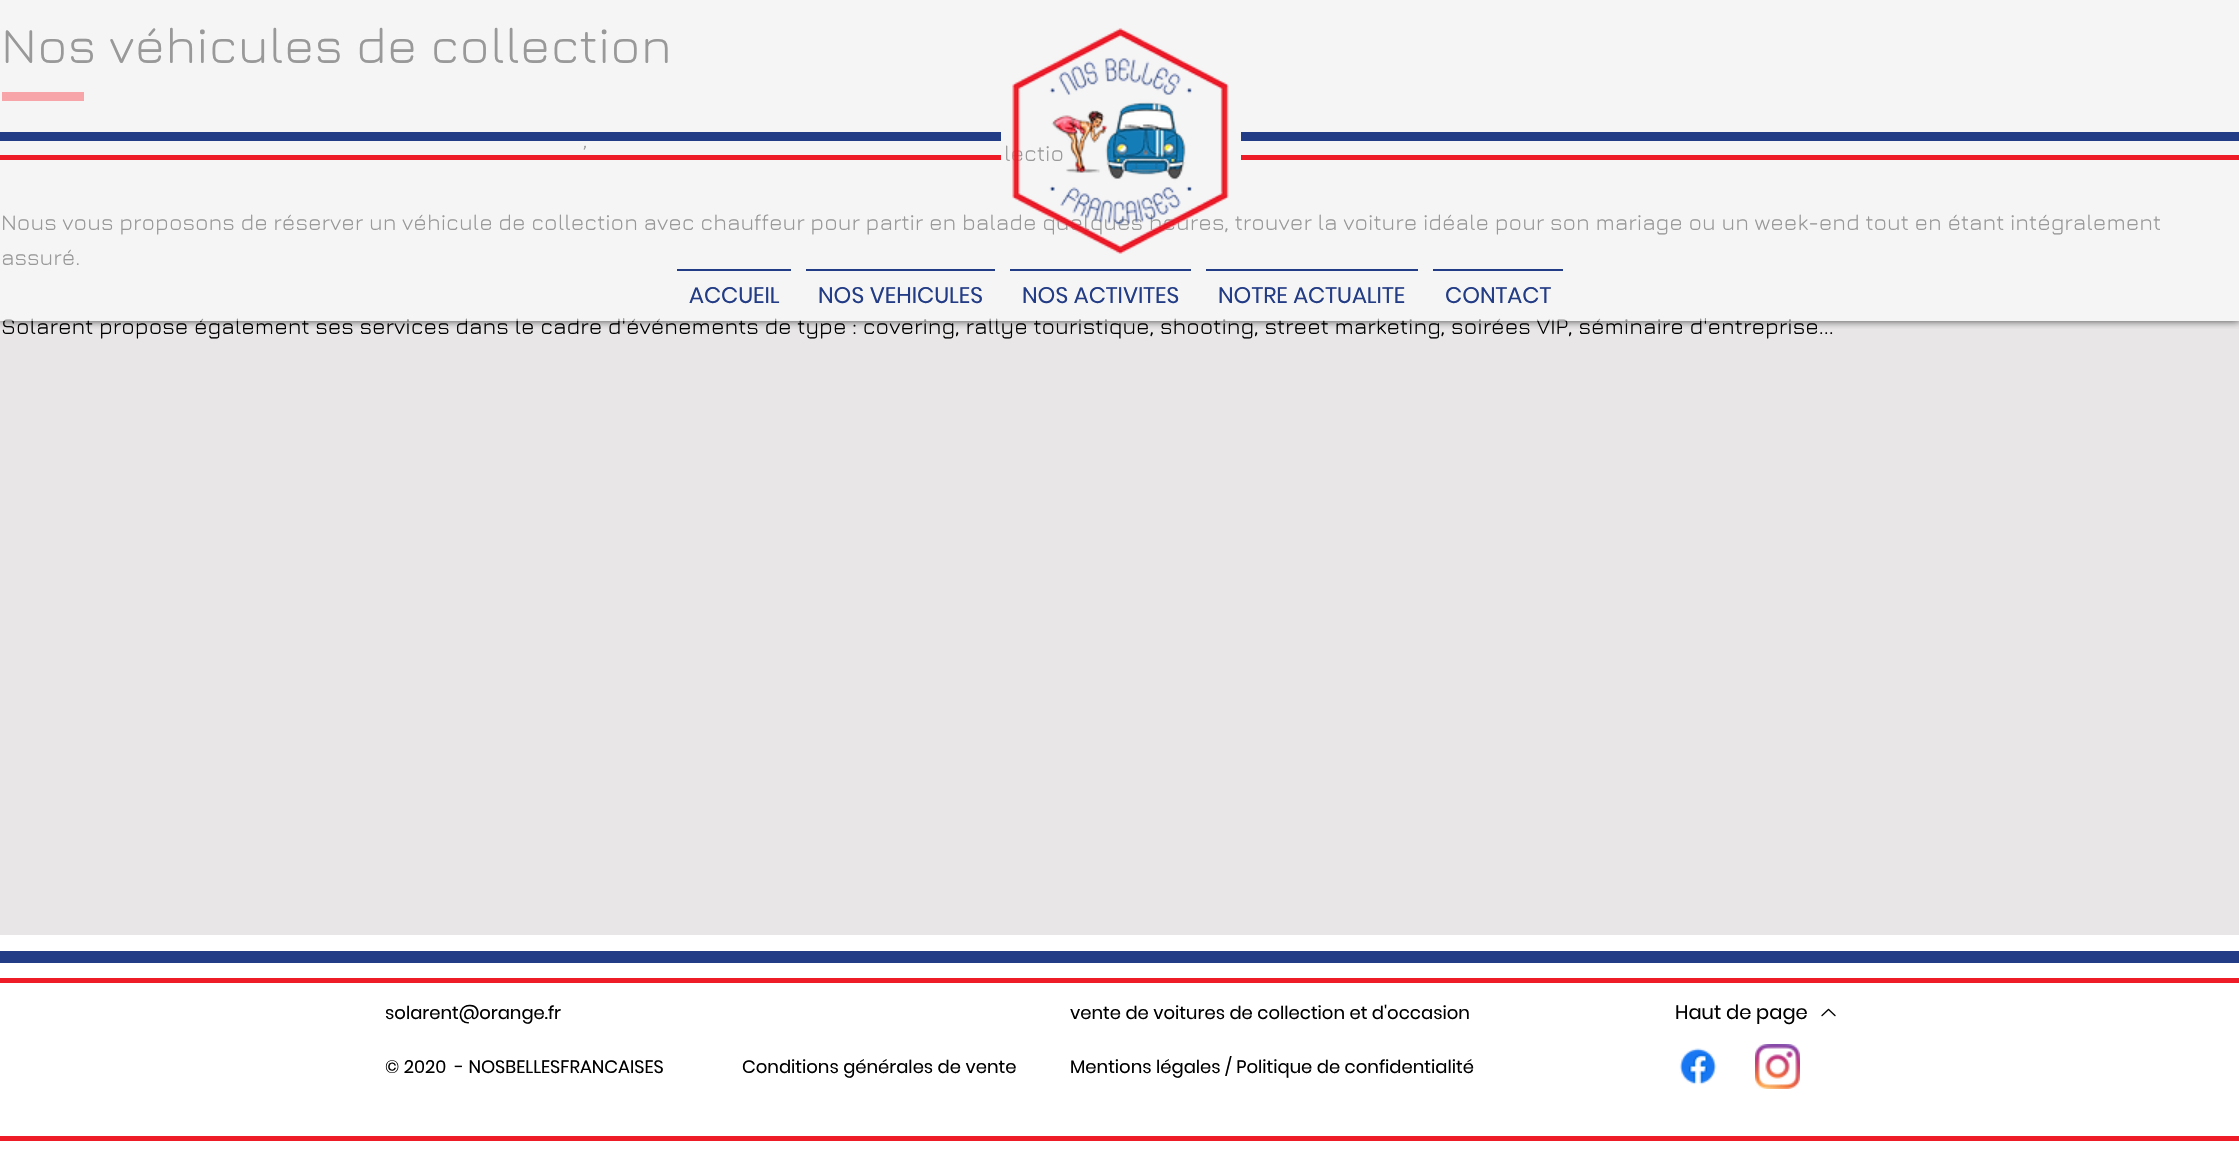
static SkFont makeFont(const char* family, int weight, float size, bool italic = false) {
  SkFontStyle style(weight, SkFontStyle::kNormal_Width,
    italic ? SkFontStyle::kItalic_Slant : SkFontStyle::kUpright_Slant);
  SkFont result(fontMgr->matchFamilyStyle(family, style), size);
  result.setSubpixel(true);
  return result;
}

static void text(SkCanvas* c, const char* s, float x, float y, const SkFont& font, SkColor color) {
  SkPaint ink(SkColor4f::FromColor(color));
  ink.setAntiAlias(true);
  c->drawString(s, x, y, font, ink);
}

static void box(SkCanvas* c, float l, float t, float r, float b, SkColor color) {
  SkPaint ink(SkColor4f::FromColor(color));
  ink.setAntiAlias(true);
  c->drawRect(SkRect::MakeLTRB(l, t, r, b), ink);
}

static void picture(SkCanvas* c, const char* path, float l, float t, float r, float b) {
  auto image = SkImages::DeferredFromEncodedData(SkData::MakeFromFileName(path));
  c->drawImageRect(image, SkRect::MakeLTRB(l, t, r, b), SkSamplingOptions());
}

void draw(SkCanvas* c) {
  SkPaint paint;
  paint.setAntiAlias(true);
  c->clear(0xffe8e6e6);
  SkFont face1 = makeFont("Jura", 400, 51);
  text(c, "Nos véhicules de collection", 1, 63, face1, 0xff000000);
  box(c, 2, 92, 84, 101, 0xffee1c26);
  SkFont face2 = makeFont("Jura", 400, 22.5f);
  text(c, "’", 583, 161, face2, 0xff000000);
  text(c, "lectio", 1004, 161, face2, 0xff000000);
  text(c, "Nous vous proposons de réserver un véhicule de collection avec chauffeur pour partir en balade quelques heures, trouver la voiture idéale pour son mariage ou un week-end tout en étant intégralement", 1, 230, face2, 0xff000000);
  text(c, "assuré.", 1, 265, face2, 0xff000000);
  text(c, "Solarent propose également ses services dans le cadre d'événements de type : covering, rallye touristique, shooting, street marketing, soirées VIP, séminaire d'entreprise...", 1, 334, face2, 0xff000000);
  c->save();
  c->clipRect(SkRect::MakeLTRB(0, 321, 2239, 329));
  paint.setColor(0xb3000000);
  paint.setMaskFilter(SkMaskFilter::MakeBlur(kNormal_SkBlurStyle, 4));
  c->drawRect(SkRect::MakeLTRB(0, 0, 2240, 321), paint);
  paint.setMaskFilter(nullptr);
  c->restore();
  box(c, 0, 0, 2239, 321, 0x99ffffff);
  box(c, 0, 132, 1001, 141, 0xff223c85);
  picture(c, "img_01.png", 1012, 28, 1229, 254);
  box(c, 1241, 132, 2239, 141, 0xff223c85);
  box(c, 0, 155, 1001, 160, 0xffee1c26);
  box(c, 1241, 155, 2239, 160, 0xffee1c26);
  box(c, 677, 269, 791, 271, 0xff223c85);
  SkFont face3 = makeFont("Poppins", 400, 22.5f);
  text(c, "ACCUEIL", 689, 303, face3, 0xff223c85);
  box(c, 806, 269, 995, 271, 0xff223c85);
  text(c, "NOS VEHICULES", 818, 303, face3, 0xff223c85);
  box(c, 1010, 269, 1191, 271, 0xff223c85);
  text(c, "NOS ACTIVITES", 1022, 303, face3, 0xff223c85);
  box(c, 1206, 269, 1418, 271, 0xff223c85);
  text(c, "NOTRE ACTUALITE", 1218, 303, face3, 0xff223c85);
  box(c, 1433, 269, 1563, 271, 0xff223c85);
  text(c, "CONTACT", 1445, 303, face3, 0xff223c85);
  box(c, 0, 935, 2239, 1155, 0xffffffff);
  box(c, 0, 951, 2239, 963, 0xff223c85);
  box(c, 0, 978, 2239, 983, 0xffee1c26);
  box(c, 0, 1136, 2239, 1141, 0xffee1c26);
  SkFont face4 = makeFont("Poppins", 400, 18);
  text(c, "solarent@orange.fr", 385, 1019, face4, 0xff000000);
  text(c, "vente de voitures de collection et d'occasion", 1070, 1019, face4, 0xff000000);
  SkFont face5 = makeFont("Poppins", 400, 19.5f);
  text(c, "Haut de page", 1675, 1019, face5, 0xff000000);
  picture(c, "img_02.png", 1821, 1008, 1836, 1017);
  text(c, "© 2020  - NOSBELLESFRANCAISES", 385, 1073, face4, 0xff000000);
  text(c, "Conditions générales de vente", 742, 1073, face4, 0xff000000);
  text(c, "Mentions légales / Politique de confidentialité", 1070, 1073, face4, 0xff000000);
  picture(c, "img_03.png", 1679, 1048, 1717, 1085);
  picture(c, "img_04.png", 1755, 1044, 1800, 1089);
}
